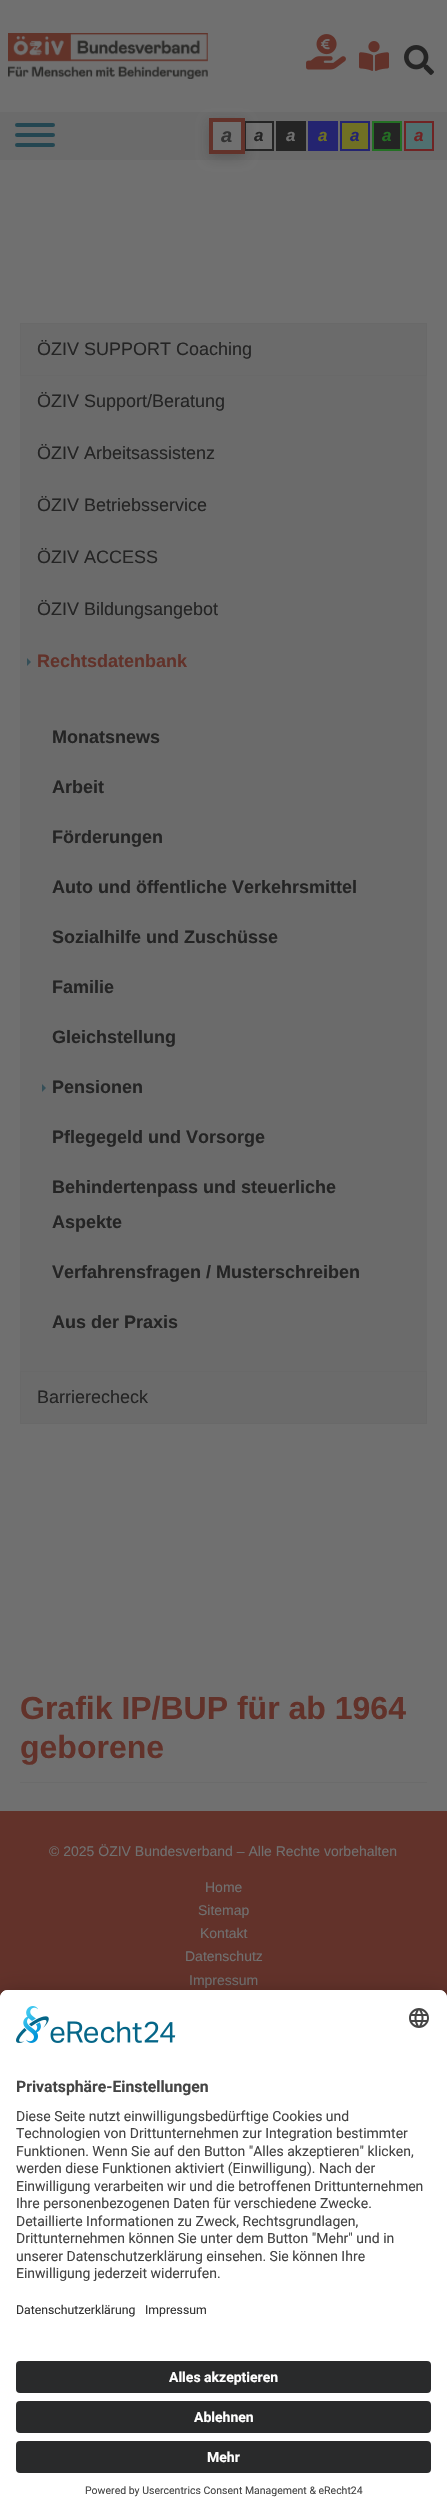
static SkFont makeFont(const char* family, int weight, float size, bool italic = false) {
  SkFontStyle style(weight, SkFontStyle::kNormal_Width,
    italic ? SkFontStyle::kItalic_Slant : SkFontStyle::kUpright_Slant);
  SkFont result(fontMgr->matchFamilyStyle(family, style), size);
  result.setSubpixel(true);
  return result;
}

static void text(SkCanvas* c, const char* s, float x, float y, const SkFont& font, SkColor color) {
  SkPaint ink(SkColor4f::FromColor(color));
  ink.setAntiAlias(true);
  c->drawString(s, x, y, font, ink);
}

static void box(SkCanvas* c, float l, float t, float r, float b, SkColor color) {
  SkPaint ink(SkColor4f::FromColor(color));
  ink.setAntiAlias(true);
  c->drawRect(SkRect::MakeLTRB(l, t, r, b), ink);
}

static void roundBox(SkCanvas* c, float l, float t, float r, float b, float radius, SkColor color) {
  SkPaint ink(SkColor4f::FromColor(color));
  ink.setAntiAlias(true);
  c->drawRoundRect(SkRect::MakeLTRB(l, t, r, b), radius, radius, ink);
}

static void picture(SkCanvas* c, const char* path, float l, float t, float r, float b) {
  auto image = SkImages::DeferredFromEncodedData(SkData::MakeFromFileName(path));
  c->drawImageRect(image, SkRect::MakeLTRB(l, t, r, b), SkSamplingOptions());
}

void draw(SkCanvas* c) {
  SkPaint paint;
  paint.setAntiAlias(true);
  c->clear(0xff707070);
  box(c, 0, 112, 447, 160, 0xff6b6b6b);
  roundBox(c, 15, 123, 55, 127, 2, 0xff244651);
  roundBox(c, 15, 133, 55, 137, 2, 0xff244651);
  roundBox(c, 15, 143, 55, 147, 2, 0xff244651);
  picture(c, "img_01.png", 8, 33, 208, 79);
  picture(c, "img_02.png", 404, 45, 434, 75);
  picture(c, "img_03.png", 306, 34, 346, 70);
  picture(c, "img_04.png", 359, 41, 389, 71);
  paint.setColor(0xff707070);
  c->drawRect(SkRect::MakeLTRB(245, 122, 273, 150), paint);
  paint.setStyle(SkPaint::kStroke_Style);
  paint.setStrokeWidth(2);
  paint.setColor(0xff242424);
  c->drawRect(SkRect::MakeLTRB(245, 122, 273, 150), paint);
  paint.setStyle(SkPaint::kFill_Style);
  paint.setColor(0x40242424);
  paint.setMaskFilter(SkMaskFilter::MakeBlur(kNormal_SkBlurStyle, 6));
  c->drawRect(SkRect::MakeLTRB(209, 122, 245, 158), paint);
  paint.setMaskFilter(nullptr);
  paint.setColor(0xff707070);
  c->drawRect(SkRect::MakeLTRB(211, 120, 243, 152), paint);
  paint.setStyle(SkPaint::kStroke_Style);
  paint.setStrokeWidth(4);
  paint.setColor(0xff62322a);
  c->drawRect(SkRect::MakeLTRB(211, 120, 243, 152), paint);
  SkFont face1 = makeFont("Liberation Sans", 700, 20, true);
  text(c, "a", 221, 142, face1, 0xff333333);
  SkFont face2 = makeFont("Liberation Sans", 700, 17, true);
  text(c, "a", 254, 141, face2, 0xff242424);
  box(c, 276, 121, 306, 151, 0xff242424);
  text(c, "a", 286, 141, face2, 0xff707070);
  box(c, 308, 121, 338, 151, 0xff242470);
  text(c, "a", 318, 141, face2, 0xff707024);
  paint.setStyle(SkPaint::kFill_Style);
  paint.setColor(0xff707024);
  c->drawRect(SkRect::MakeLTRB(341, 122, 369, 150), paint);
  paint.setStyle(SkPaint::kStroke_Style);
  paint.setStrokeWidth(2);
  paint.setColor(0xff242470);
  c->drawRect(SkRect::MakeLTRB(341, 122, 369, 150), paint);
  text(c, "a", 350, 141, face2, 0xff242470);
  paint.setStyle(SkPaint::kFill_Style);
  paint.setColor(0xff242424);
  c->drawRect(SkRect::MakeLTRB(373, 122, 401, 150), paint);
  paint.setStyle(SkPaint::kStroke_Style);
  paint.setColor(0xff247024);
  c->drawRect(SkRect::MakeLTRB(373, 122, 401, 150), paint);
  text(c, "a", 382, 141, face2, 0xff247024);
  paint.setStyle(SkPaint::kFill_Style);
  paint.setColor(0xff507070);
  c->drawRect(SkRect::MakeLTRB(405, 122, 433, 150), paint);
  paint.setStyle(SkPaint::kStroke_Style);
  paint.setColor(0xff702424);
  c->drawRect(SkRect::MakeLTRB(405, 122, 433, 150), paint);
  text(c, "a", 414, 141, face2, 0xff702424);
  box(c, 20, 324, 427, 1423, 0xff6b6b6b);
  paint.setStrokeWidth(1);
  paint.setColor(0xff696969);
  c->drawRect(SkRect::MakeLTRB(20.5f, 323.5f, 426.5f, 375.5f), paint);
  SkFont face3 = makeFont("Liberation Sans", 400, 18);
  text(c, "ÖZIV SUPPORT Coaching", 37, 355, face3, 0xff242424);
  text(c, "ÖZIV Support/Beratung", 37, 407, face3, 0xff242424);
  text(c, "ÖZIV Arbeitsassistenz", 37, 459, face3, 0xff242424);
  text(c, "ÖZIV Betriebsservice", 37, 511, face3, 0xff242424);
  text(c, "ÖZIV ACCESS", 37, 563, face3, 0xff242424);
  text(c, "ÖZIV Bildungsangebot", 37, 615, face3, 0xff242424);
  paint.setStyle(SkPaint::kFill_Style);
  paint.setColor(0xff354f58);
  c->drawPath(SkPathBuilder().moveTo(27, 666).lineTo(27, 658).lineTo(31, 662).close().detach(), paint);
  SkFont face4 = makeFont("Liberation Sans", 700, 18);
  text(c, "Rechtsdatenbank", 37, 667, face4, 0xff62322a);
  text(c, "Monatsnews", 52, 743, face4, 0xff242424);
  text(c, "Arbeit", 52, 793, face4, 0xff242424);
  text(c, "Förderungen", 52, 843, face4, 0xff242424);
  text(c, "Auto und öffentliche Verkehrsmittel", 52, 893, face4, 0xff242424);
  text(c, "Sozialhilfe und Zuschüsse", 52, 943, face4, 0xff242424);
  text(c, "Familie", 52, 993, face4, 0xff242424);
  text(c, "Gleichstellung", 52, 1043, face4, 0xff242424);
  c->drawPath(SkPathBuilder().moveTo(42, 1092).lineTo(42, 1084).lineTo(46, 1088).close().detach(), paint);
  text(c, "Pensionen", 52, 1093, face4, 0xff242424);
  text(c, "Pflegegeld und Vorsorge", 52, 1143, face4, 0xff242424);
  text(c, "Behindertenpass und steuerliche", 52, 1193, face4, 0xff242424);
  text(c, "Aspekte", 52, 1228, face4, 0xff242424);
  text(c, "Verfahrensfragen / Musterschreiben", 52, 1278, face4, 0xff242424);
  text(c, "Aus der Praxis", 52, 1328, face4, 0xff242424);
  paint.setStyle(SkPaint::kStroke_Style);
  paint.setColor(0xff696969);
  c->drawRect(SkRect::MakeLTRB(20.5f, 1371.5f, 426.5f, 1423.5f), paint);
  text(c, "Barrierecheck", 37, 1403, face3, 0xff242424);
  box(c, 20, 1782, 427, 1783, 0xff6b6b6b);
  SkFont face5 = makeFont("Liberation Sans", 700, 32);
  text(c, "Grafik IP/BUP für ab 1964", 20, 1719, face5, 0xff62322a);
  text(c, "geborene", 20, 1758, face5, 0xff62322a);
  box(c, 0, 1811, 447, 1998, 0xff62322a);
  SkFont face6 = makeFont("Liberation Sans", 400, 14);
  text(c, "© 2025 ÖZIV Bundesverband – Alle Rechte vorbehalten", 49, 1856, face6, 0xff707070);
  text(c, "Home", 205, 1892, face6, 0xff707070);
  text(c, "Sitemap", 198, 1915, face6, 0xff707070);
  text(c, "Kontakt", 200, 1938, face6, 0xff707070);
  text(c, "Datenschutz", 185, 1961, face6, 0xff707070);
  text(c, "Impressum", 189, 1985, face6, 0xff707070);
  paint.setStyle(SkPaint::kFill_Style);
  paint.setColor(0x4d000000);
  paint.setMaskFilter(SkMaskFilter::MakeBlur(kNormal_SkBlurStyle, 14));
  c->drawRoundRect(SkRect::MakeLTRB(0, 2010, 447, 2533), 8, 8, paint);
  paint.setMaskFilter(nullptr);
  paint.setColor(0x38000000);
  paint.setMaskFilter(SkMaskFilter::MakeBlur(kNormal_SkBlurStyle, 13));
  c->drawRoundRect(SkRect::MakeLTRB(0, 1995, 447, 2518), 8, 8, paint);
  paint.setMaskFilter(nullptr);
  paint.setColor(0xffffffff);
  c->drawPath(SkPathBuilder().moveTo(8, 1990).lineTo(439, 1990).cubicTo(443.5f, 1990, 447, 1993.5f, 447, 1998).lineTo(447, 2513).lineTo(0, 2513).lineTo(0, 1998).cubicTo(0, 1993.5f, 3.5f, 1990, 8, 1990).close().detach(), paint);
  c->drawPath(SkPathBuilder().moveTo(8, 1990).lineTo(439, 1990).cubicTo(443.5f, 1990, 447, 1993.5f, 447, 1998).lineTo(447, 2349).lineTo(0, 2349).lineTo(0, 1998).cubicTo(0, 1993.5f, 3.5f, 1990, 8, 1990).close().detach(), paint);
  picture(c, "img_05.png", 16, 2006, 176, 2043);
  picture(c, "img_06.png", 409, 2008, 429, 2028);
  SkFont face7 = makeFont("Roboto", 700, 15.75f);
  text(c, "Privatsphäre-Einstellungen", 16, 2092, face7, 0xff444444);
  SkFont face8 = makeFont("Roboto", 400, 14);
  text(c, "Diese Seite nutzt einwilligungsbedürftige Cookies und", 16, 2121, face8, 0xff444444);
  text(c, "Technologien von Drittunternehmen zur Integration bestimmter", 16, 2138, face8, 0xff444444);
  text(c, "Funktionen. Wenn Sie auf den Button \"Alles akzeptieren\" klicken,", 16, 2156, face8, 0xff444444);
  text(c, "werden diese Funktionen aktiviert (Einwilligung). Nach der", 16, 2173, face8, 0xff444444);
  text(c, "Einwilligung verarbeiten wir und die betroffenen Drittunternehmen", 16, 2191, face8, 0xff444444);
  text(c, "Ihre personenbezogenen Daten für verschiedene Zwecke.", 16, 2208, face8, 0xff444444);
  text(c, "Detaillierte Informationen zu Zweck, Rechtsgrundlagen,", 16, 2226, face8, 0xff444444);
  text(c, "Drittunternehmen können Sie unter dem Button \"Mehr\" und in", 16, 2243, face8, 0xff444444);
  text(c, "unserer Datenschutzerklärung einsehen. Sie können Ihre", 16, 2261, face8, 0xff444444);
  text(c, "Einwilligung jederzeit widerrufen.", 16, 2278, face8, 0xff444444);
  SkFont face9 = makeFont("Roboto", 400, 12.25f);
  text(c, "Datenschutzerklärung", 16, 2314, face9, 0xff333333);
  text(c, "Impressum", 145, 2314, face9, 0xff333333);
  roundBox(c, 16, 2361, 431, 2393, 4, 0xff292a2b);
  SkFont face10 = makeFont("Roboto", 700, 14);
  text(c, "Alles akzeptieren", 169, 2382, face10, 0xffffffff);
  roundBox(c, 16, 2401, 431, 2433, 4, 0xff292a2b);
  text(c, "Ablehnen", 194, 2422, face10, 0xffffffff);
  roundBox(c, 16, 2441, 431, 2473, 4, 0xff292a2b);
  text(c, "Mehr", 207, 2462, face10, 0xffffffff);
  SkFont face11 = makeFont("Roboto", 400, 10.5f);
  text(c, "Powered by Usercentrics Consent Management & eRecht24", 85, 2494, face11, 0xff444444);
}
